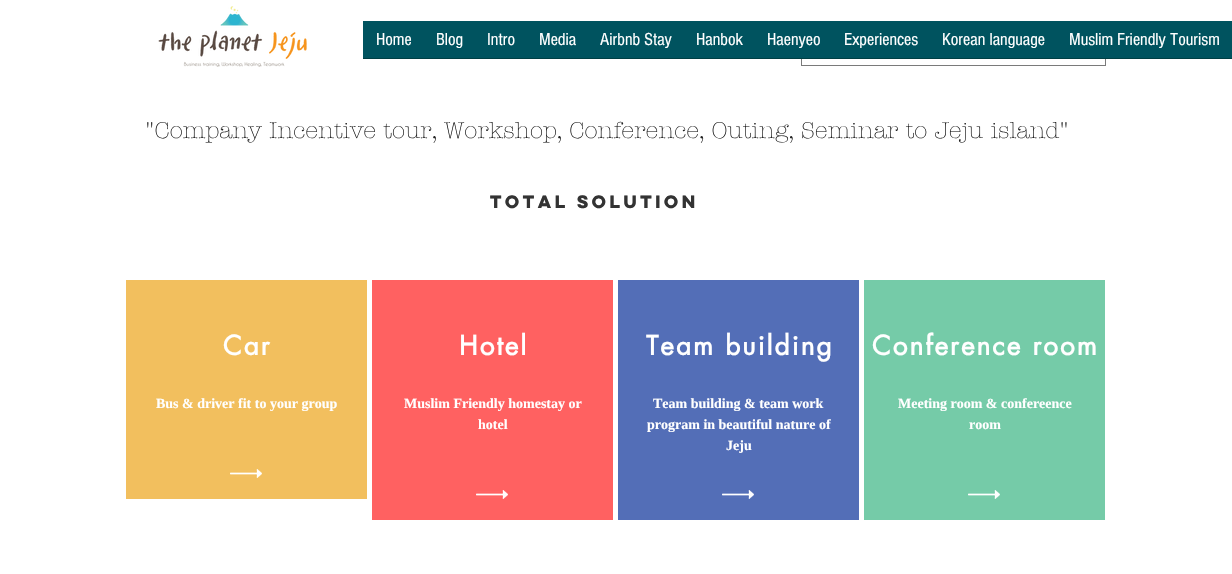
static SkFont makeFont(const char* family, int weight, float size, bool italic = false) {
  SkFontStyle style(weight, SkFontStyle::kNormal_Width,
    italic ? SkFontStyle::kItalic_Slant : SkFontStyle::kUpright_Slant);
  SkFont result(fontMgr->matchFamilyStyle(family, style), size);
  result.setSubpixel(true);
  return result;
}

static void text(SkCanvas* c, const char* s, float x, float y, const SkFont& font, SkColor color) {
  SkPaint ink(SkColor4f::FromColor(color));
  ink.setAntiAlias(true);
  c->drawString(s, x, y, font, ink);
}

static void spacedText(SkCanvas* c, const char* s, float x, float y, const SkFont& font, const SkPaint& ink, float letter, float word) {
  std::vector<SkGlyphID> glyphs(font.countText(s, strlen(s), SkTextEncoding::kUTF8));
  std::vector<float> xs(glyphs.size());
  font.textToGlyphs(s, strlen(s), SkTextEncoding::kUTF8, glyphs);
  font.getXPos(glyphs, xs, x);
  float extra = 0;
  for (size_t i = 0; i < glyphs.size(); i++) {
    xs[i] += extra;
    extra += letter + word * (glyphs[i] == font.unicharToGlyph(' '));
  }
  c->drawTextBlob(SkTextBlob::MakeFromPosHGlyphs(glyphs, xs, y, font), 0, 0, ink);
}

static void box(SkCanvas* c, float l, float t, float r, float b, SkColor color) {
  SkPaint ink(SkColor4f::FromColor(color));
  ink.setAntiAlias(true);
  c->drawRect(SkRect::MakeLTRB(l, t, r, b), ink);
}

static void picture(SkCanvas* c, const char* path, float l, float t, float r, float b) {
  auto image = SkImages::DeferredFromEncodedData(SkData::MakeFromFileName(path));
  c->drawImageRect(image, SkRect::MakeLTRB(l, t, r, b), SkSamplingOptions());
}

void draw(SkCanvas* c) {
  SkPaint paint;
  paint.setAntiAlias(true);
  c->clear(0xffffffff);
  picture(c, "img_01.png", 158, 6, 307, 67);
  paint.setStyle(SkPaint::kStroke_Style);
  paint.setStrokeWidth(1);
  paint.setColor(0xff7a7a7a);
  c->drawRect(SkRect::MakeLTRB(801.5f, 21.5f, 1105.5f, 65.5f), paint);
  box(c, 363, 21, 1232, 58, 0xff00535f);
  box(c, 363, 58, 1232, 59, 0xff003f44);
  SkFont face1 = makeFont("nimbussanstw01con", 400, 18);
  text(c, "Home", 376, 45, face1, 0xffffffff);
  text(c, "Blog", 436, 45, face1, 0xffffffff);
  text(c, "Intro", 487, 45, face1, 0xffffffff);
  text(c, "Media", 539, 45, face1, 0xffffffff);
  text(c, "Airbnb Stay", 600, 45, face1, 0xffffffff);
  text(c, "Hanbok", 696, 45, face1, 0xffffffff);
  text(c, "Haenyeo", 767, 45, face1, 0xffffffff);
  text(c, "Experiences", 844, 45, face1, 0xffffffff);
  text(c, "Korean language", 942, 45, face1, 0xffffffff);
  text(c, "Muslim Friendly Tourism", 1069, 45, face1, 0xffffffff);
  SkFont face2 = makeFont("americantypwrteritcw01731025", 300, 23);
  text(c, "\"Company Incentive tour, Workshop, Conference, Outing, Seminar to Jeju island\"", 145, 138, face2, 0xff212121);
  SkFont face3 = makeFont("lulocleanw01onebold", 700, 16);
  text(c, "TOTAL SOLUTION", 490, 208, face3, 0xff333333);
  box(c, 126, 280, 367, 499, 0xfff2bf5e);
  SkFont face4 = makeFont("futura", 700, 26);
  paint.setStyle(SkPaint::kFill_Style);
  paint.setColor(0xffffffff);
  spacedText(c, "Car", 223, 355, face4, paint, 2.1f, 0);
  SkFont face5 = makeFont("Liberation Serif", 700, 14);
  text(c, "Bus & driver fit to your group", 156, 408, face5, 0xffffffff);
  picture(c, "img_02.png", 230, 469, 262, 478);
  box(c, 372, 280, 613, 520, 0xffff6161);
  spacedText(c, "Hotel", 459, 355, face4, paint, 2.1f, 0);
  text(c, "Muslim Friendly homestay or", 404, 408, face5, 0xffffffff);
  text(c, "hotel", 478, 429, face5, 0xffffffff);
  picture(c, "img_03.png", 476, 490, 508, 499);
  box(c, 618, 280, 859, 520, 0xff536eb7);
  spacedText(c, "Team building", 646, 355, face4, paint, 2.1f, 0);
  text(c, "Team building & team work", 653, 408, face5, 0xffffffff);
  text(c, "program in beautiful nature of", 647, 429, face5, 0xffffffff);
  text(c, "Jeju", 726, 450, face5, 0xffffffff);
  picture(c, "img_04.png", 722, 490, 754, 499);
  box(c, 864, 280, 1105, 520, 0xff75cba8);
  spacedText(c, "Conference room", 872, 355, face4, paint, 2.1f, 0);
  text(c, "Meeting room & confereence", 898, 408, face5, 0xffffffff);
  text(c, "room", 969, 429, face5, 0xffffffff);
  picture(c, "img_05.png", 968, 490, 1000, 499);
}
